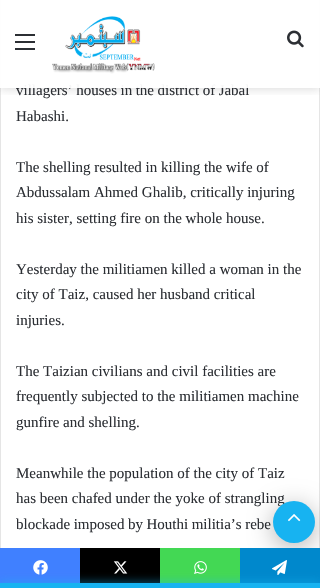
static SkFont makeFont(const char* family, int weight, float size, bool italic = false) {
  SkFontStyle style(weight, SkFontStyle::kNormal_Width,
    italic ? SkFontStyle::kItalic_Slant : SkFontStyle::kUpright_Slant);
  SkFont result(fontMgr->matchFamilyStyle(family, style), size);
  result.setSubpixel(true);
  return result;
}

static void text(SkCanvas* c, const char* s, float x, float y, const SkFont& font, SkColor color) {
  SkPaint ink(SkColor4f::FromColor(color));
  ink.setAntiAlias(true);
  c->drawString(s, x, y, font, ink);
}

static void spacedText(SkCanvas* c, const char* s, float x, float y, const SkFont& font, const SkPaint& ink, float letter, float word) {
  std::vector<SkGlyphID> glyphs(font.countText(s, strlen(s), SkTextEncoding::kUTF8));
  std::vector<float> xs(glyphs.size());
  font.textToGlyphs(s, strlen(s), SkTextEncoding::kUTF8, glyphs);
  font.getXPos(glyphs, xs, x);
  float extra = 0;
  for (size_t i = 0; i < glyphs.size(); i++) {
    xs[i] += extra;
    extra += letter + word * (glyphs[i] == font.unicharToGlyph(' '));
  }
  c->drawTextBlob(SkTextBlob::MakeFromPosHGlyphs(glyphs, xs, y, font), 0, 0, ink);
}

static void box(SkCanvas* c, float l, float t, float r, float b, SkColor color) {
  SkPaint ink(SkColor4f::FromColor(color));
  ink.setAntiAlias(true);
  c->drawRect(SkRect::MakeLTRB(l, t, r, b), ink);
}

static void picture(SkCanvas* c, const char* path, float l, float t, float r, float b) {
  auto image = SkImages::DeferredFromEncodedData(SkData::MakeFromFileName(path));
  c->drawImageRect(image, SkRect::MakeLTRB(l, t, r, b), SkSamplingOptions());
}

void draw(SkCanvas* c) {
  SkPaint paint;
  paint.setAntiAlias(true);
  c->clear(0xffffffff);
  paint.setStyle(SkPaint::kStroke_Style);
  paint.setStrokeWidth(1);
  paint.setColor(0x1a000000);
  c->drawRect(SkRect::MakeLTRB(0.5f, -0.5f, 319.5f, 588.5f), paint);
  c->save();
  c->clipRect(SkRect::MakeLTRB(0, 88, 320, 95));
  paint.setStyle(SkPaint::kFill_Style);
  paint.setColor(0x33636363);
  paint.setMaskFilter(SkMaskFilter::MakeBlur(kNormal_SkBlurStyle, 4));
  c->drawRect(SkRect::MakeLTRB(0, 2, 320, 90), paint);
  paint.setMaskFilter(nullptr);
  c->restore();
  SkFont face1 = makeFont("Liberation Serif", 400, 15);
  paint.setColor(0xff2c2f34);
  spacedText(c, "villagers’ houses in the district of Jabal", 16, 95, face1, paint, 0, -0.25f);
  box(c, 0, 0, 320, 88, 0xf2ffffff);
  box(c, 15, 41, 35, 43, 0xff2c2f34);
  box(c, 15, 34, 35, 36, 0xff2c2f34);
  box(c, 15, 48, 35, 50, 0xff2c2f34);
  picture(c, "img_01.png", 52, 16, 155, 74);
  picture(c, "img_02.png", 287, 30, 304, 48);
  text(c, "Habashi.", 16, 121, face1, 0xff2c2f34);
  text(c, "The shelling resulted in killing the wife of", 16, 172, face1, 0xff2c2f34);
  text(c, "Abdussalam Ahmed Ghalib, critically injuring", 16, 197, face1, 0xff2c2f34);
  text(c, "his sister, setting fire on the whole house.", 16, 223, face1, 0xff2c2f34);
  text(c, "Yesterday the militiamen killed a woman in the", 16, 274, face1, 0xff2c2f34);
  text(c, "city of Taiz, caused her husband critical", 16, 299, face1, 0xff2c2f34);
  text(c, "injuries.", 16, 325, face1, 0xff2c2f34);
  text(c, "The Taizian civilians and civil facilities are", 16, 376, face1, 0xff2c2f34);
  text(c, "frequently subjected to the militiamen machine", 16, 401, face1, 0xff2c2f34);
  text(c, "gunfire and shelling.", 16, 427, face1, 0xff2c2f34);
  text(c, "Meanwhile the population of the city of Taiz", 16, 478, face1, 0xff2c2f34);
  text(c, "has been chafed under the yoke of strangling", 16, 503, face1, 0xff2c2f34);
  spacedText(c, "blockade imposed by Houthi militia’s rebe", 16, 529, face1, paint, 0, -0.25f);
  paint.setColor(0x4d000000);
  paint.setMaskFilter(SkMaskFilter::MakeBlur(kNormal_SkBlurStyle, 12.5f));
  c->drawRoundRect(SkRect::MakeLTRB(273, 506, 315, 548), 21, 21, paint);
  paint.setMaskFilter(nullptr);
  paint.setColor(0xff17b3f1);
  c->drawCircle(294, 522, 21, paint);
  picture(c, "img_03.png", 288, 514, 301, 522);
  box(c, 0, 548, 80, 583, 0xff4080ff);
  picture(c, "img_04.png", 33, 560, 48, 575);
  box(c, 80, 548, 160, 583, 0xff000000);
  picture(c, "img_05.png", 113, 561, 128, 574);
  box(c, 160, 548, 240, 583, 0xff43d854);
  picture(c, "img_06.png", 194, 561, 207, 574);
  box(c, 240, 548, 320, 583, 0xff0088cc);
  picture(c, "img_07.png", 272, 560, 287, 575);
  paint.setColor(0xb317b3f1);
  paint.setMaskFilter(SkMaskFilter::MakeBlur(kNormal_SkBlurStyle, 5));
  c->drawRect(SkRect::MakeLTRB(0, 583, 320, 588), paint);
  paint.setMaskFilter(nullptr);
  box(c, 0, 583, 320, 588, 0xff17b3f1);
}
